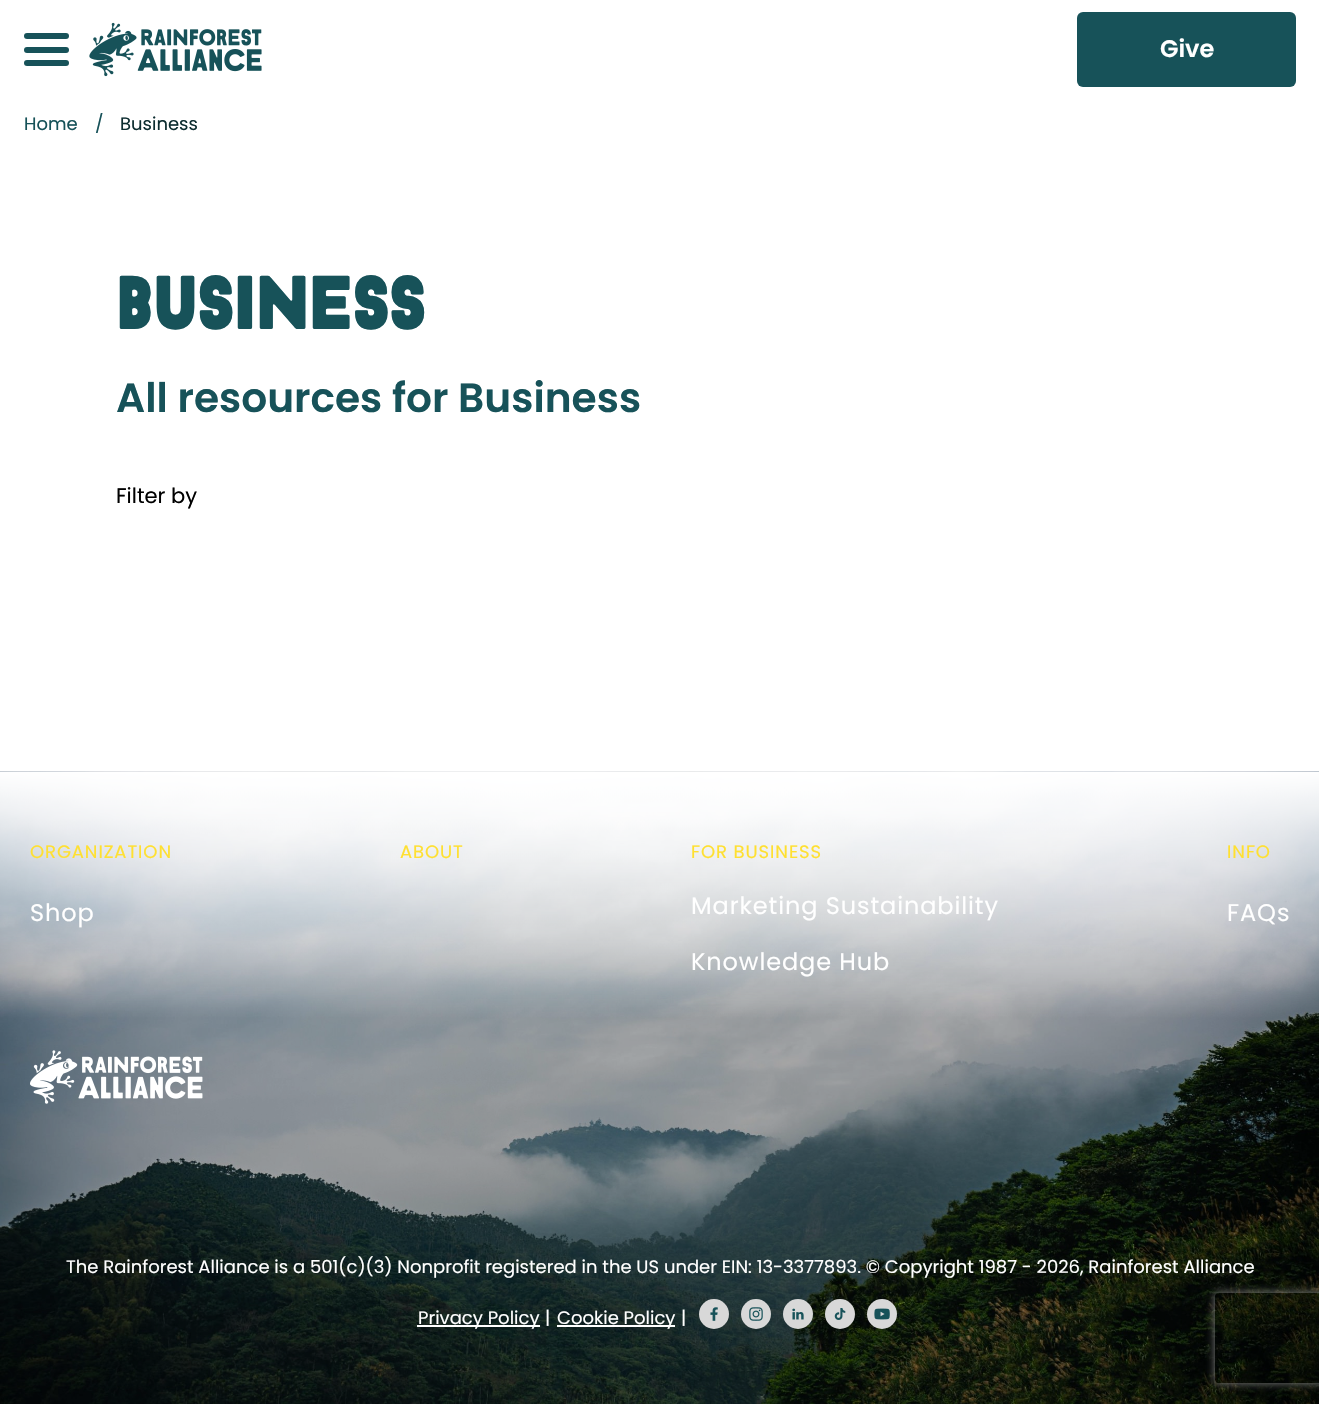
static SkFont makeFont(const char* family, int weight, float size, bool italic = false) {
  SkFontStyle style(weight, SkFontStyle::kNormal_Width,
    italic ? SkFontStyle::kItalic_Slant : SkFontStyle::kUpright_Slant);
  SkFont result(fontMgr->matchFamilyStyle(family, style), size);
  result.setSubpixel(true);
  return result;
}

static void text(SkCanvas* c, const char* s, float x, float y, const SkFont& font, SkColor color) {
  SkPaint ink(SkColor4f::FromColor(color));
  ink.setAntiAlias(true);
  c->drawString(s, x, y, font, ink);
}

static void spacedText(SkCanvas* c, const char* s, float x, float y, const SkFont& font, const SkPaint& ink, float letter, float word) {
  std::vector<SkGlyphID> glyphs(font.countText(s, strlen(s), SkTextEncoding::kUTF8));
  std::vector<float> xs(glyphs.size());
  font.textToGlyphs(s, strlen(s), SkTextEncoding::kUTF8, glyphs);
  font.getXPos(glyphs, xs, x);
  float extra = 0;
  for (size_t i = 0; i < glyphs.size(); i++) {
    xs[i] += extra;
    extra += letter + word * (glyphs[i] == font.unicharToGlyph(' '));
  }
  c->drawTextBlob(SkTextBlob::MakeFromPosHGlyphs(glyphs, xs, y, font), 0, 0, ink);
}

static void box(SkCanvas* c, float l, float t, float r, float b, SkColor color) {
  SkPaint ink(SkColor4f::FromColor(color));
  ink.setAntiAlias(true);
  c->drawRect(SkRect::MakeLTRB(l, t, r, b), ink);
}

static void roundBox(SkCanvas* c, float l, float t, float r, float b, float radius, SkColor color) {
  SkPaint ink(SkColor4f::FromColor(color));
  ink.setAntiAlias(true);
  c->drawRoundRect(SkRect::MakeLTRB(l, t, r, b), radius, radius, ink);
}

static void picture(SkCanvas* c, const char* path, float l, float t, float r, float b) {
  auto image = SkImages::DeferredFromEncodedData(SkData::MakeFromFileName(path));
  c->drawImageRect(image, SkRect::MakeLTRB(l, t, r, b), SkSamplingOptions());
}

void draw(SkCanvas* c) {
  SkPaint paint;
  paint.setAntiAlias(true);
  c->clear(0xffffffff);
  roundBox(c, 24, 33, 69, 39, 3, 0xff175259);
  roundBox(c, 24, 47, 69, 53, 3, 0xff175259);
  roundBox(c, 24, 60, 69, 66, 3, 0xff175259);
  picture(c, "img_01.png", 89, 22, 262, 77);
  roundBox(c, 1077, 12, 1296, 87, 6, 0xff175259);
  SkFont face1 = makeFont("Poppins", 600, 24);
  text(c, "Give", 1160, 57, face1, 0xffffffff);
  SkFont face2 = makeFont("Poppins", 400, 18);
  text(c, "Home", 24, 130, face2, 0xff175259);
  text(c, "/", 95, 130, face2, 0xff175259);
  text(c, "Business", 120, 130, face2, 0xff0d2d30);
  SkFont face3 = makeFont("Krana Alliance", 900, 76);
  text(c, "BUSINESS", 116, 329, face3, 0xff175259);
  SkFont face4 = makeFont("Poppins", 600, 40.7f);
  text(c, "All resources for Business", 116, 412, face4, 0xff175259);
  SkFont face5 = makeFont("Poppins", 400, 21);
  text(c, "Filter by", 116, 503, face5, 0xff000000);
  picture(c, "img_02.png", 0, 771, 1319, 1404);
  paint.setColor(0xffffe030);
  spacedText(c, "ORGANIZATION", 30, 858, face2, paint, 0.9f, 0);
  SkFont face6 = makeFont("Poppins", 400, 24);
  paint.setColor(0xffffffff);
  spacedText(c, "Shop", 30, 921, face6, paint, 0.9f, 0);
  paint.setColor(0xffffe030);
  spacedText(c, "ABOUT", 400, 858, face2, paint, 0.9f, 0);
  spacedText(c, "FOR BUSINESS", 691, 858, face2, paint, 0.9f, 0);
  paint.setColor(0xffffffff);
  spacedText(c, "Marketing Sustainability", 691, 914, face6, paint, 0.9f, 0);
  spacedText(c, "Knowledge Hub", 691, 970, face6, paint, 0.9f, 0);
  paint.setColor(0xffffe030);
  spacedText(c, "INFO", 1227, 858, face2, paint, 0.9f, 0);
  paint.setColor(0xffffffff);
  spacedText(c, "FAQs", 1227, 921, face6, paint, 0.9f, 0);
  picture(c, "img_03.png", 30, 1050, 203, 1104);
  text(c, "The Rainforest Alliance is a 501(c)(3) Nonprofit registered in the US under EIN: 13-3377893. © Copyright 1987 - 2026, Rainforest Alliance", 66, 1273, face2, 0xffffffff);
  box(c, 417, 1325, 540, 1327, 0xffffffff);
  text(c, "Privacy Policy", 418, 1324, face2, 0xffffffff);
  text(c, "|", 545, 1324, face2, 0xffffffff);
  box(c, 557, 1325, 675, 1327, 0xffffffff);
  text(c, "Cookie Policy", 557, 1324, face2, 0xffffffff);
  text(c, "|", 681, 1324, face2, 0xffffffff);
  paint.setColor(0xffd8d8d8);
  c->drawCircle(714, 1314, 15, paint);
  picture(c, "img_04.png", 710, 1307, 718, 1321);
  c->drawCircle(756, 1314, 15, paint);
  picture(c, "img_05.png", 749, 1307, 763, 1321);
  c->drawCircle(798, 1314, 15, paint);
  picture(c, "img_06.png", 792, 1308, 804, 1320);
  c->drawCircle(840, 1314, 15, paint);
  picture(c, "img_07.png", 834, 1308, 846, 1320);
  c->drawCircle(882, 1314, 15, paint);
  picture(c, "img_08.png", 874, 1308, 890, 1320);
  c->save();
  c->clipPath(SkPathBuilder(SkPathFillType::kEvenOdd).moveTo(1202, 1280).lineTo(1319, 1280).lineTo(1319, 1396).lineTo(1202, 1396).close().moveTo(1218, 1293).lineTo(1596, 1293).cubicTo(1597.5f, 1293, 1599, 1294.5f, 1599, 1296).lineTo(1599, 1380).cubicTo(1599, 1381.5f, 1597.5f, 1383, 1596, 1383).lineTo(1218, 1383).cubicTo(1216.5f, 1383, 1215, 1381.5f, 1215, 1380).lineTo(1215, 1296).cubicTo(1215, 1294.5f, 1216.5f, 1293, 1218, 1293).close().detach(), true);
  paint.setColor(0xff808080);
  paint.setMaskFilter(SkMaskFilter::MakeBlur(kNormal_SkBlurStyle, 4));
  c->drawRoundRect(SkRect::MakeLTRB(1215, 1293, 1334, 1383), 3, 3, paint);
  paint.setMaskFilter(nullptr);
  c->restore();
}
